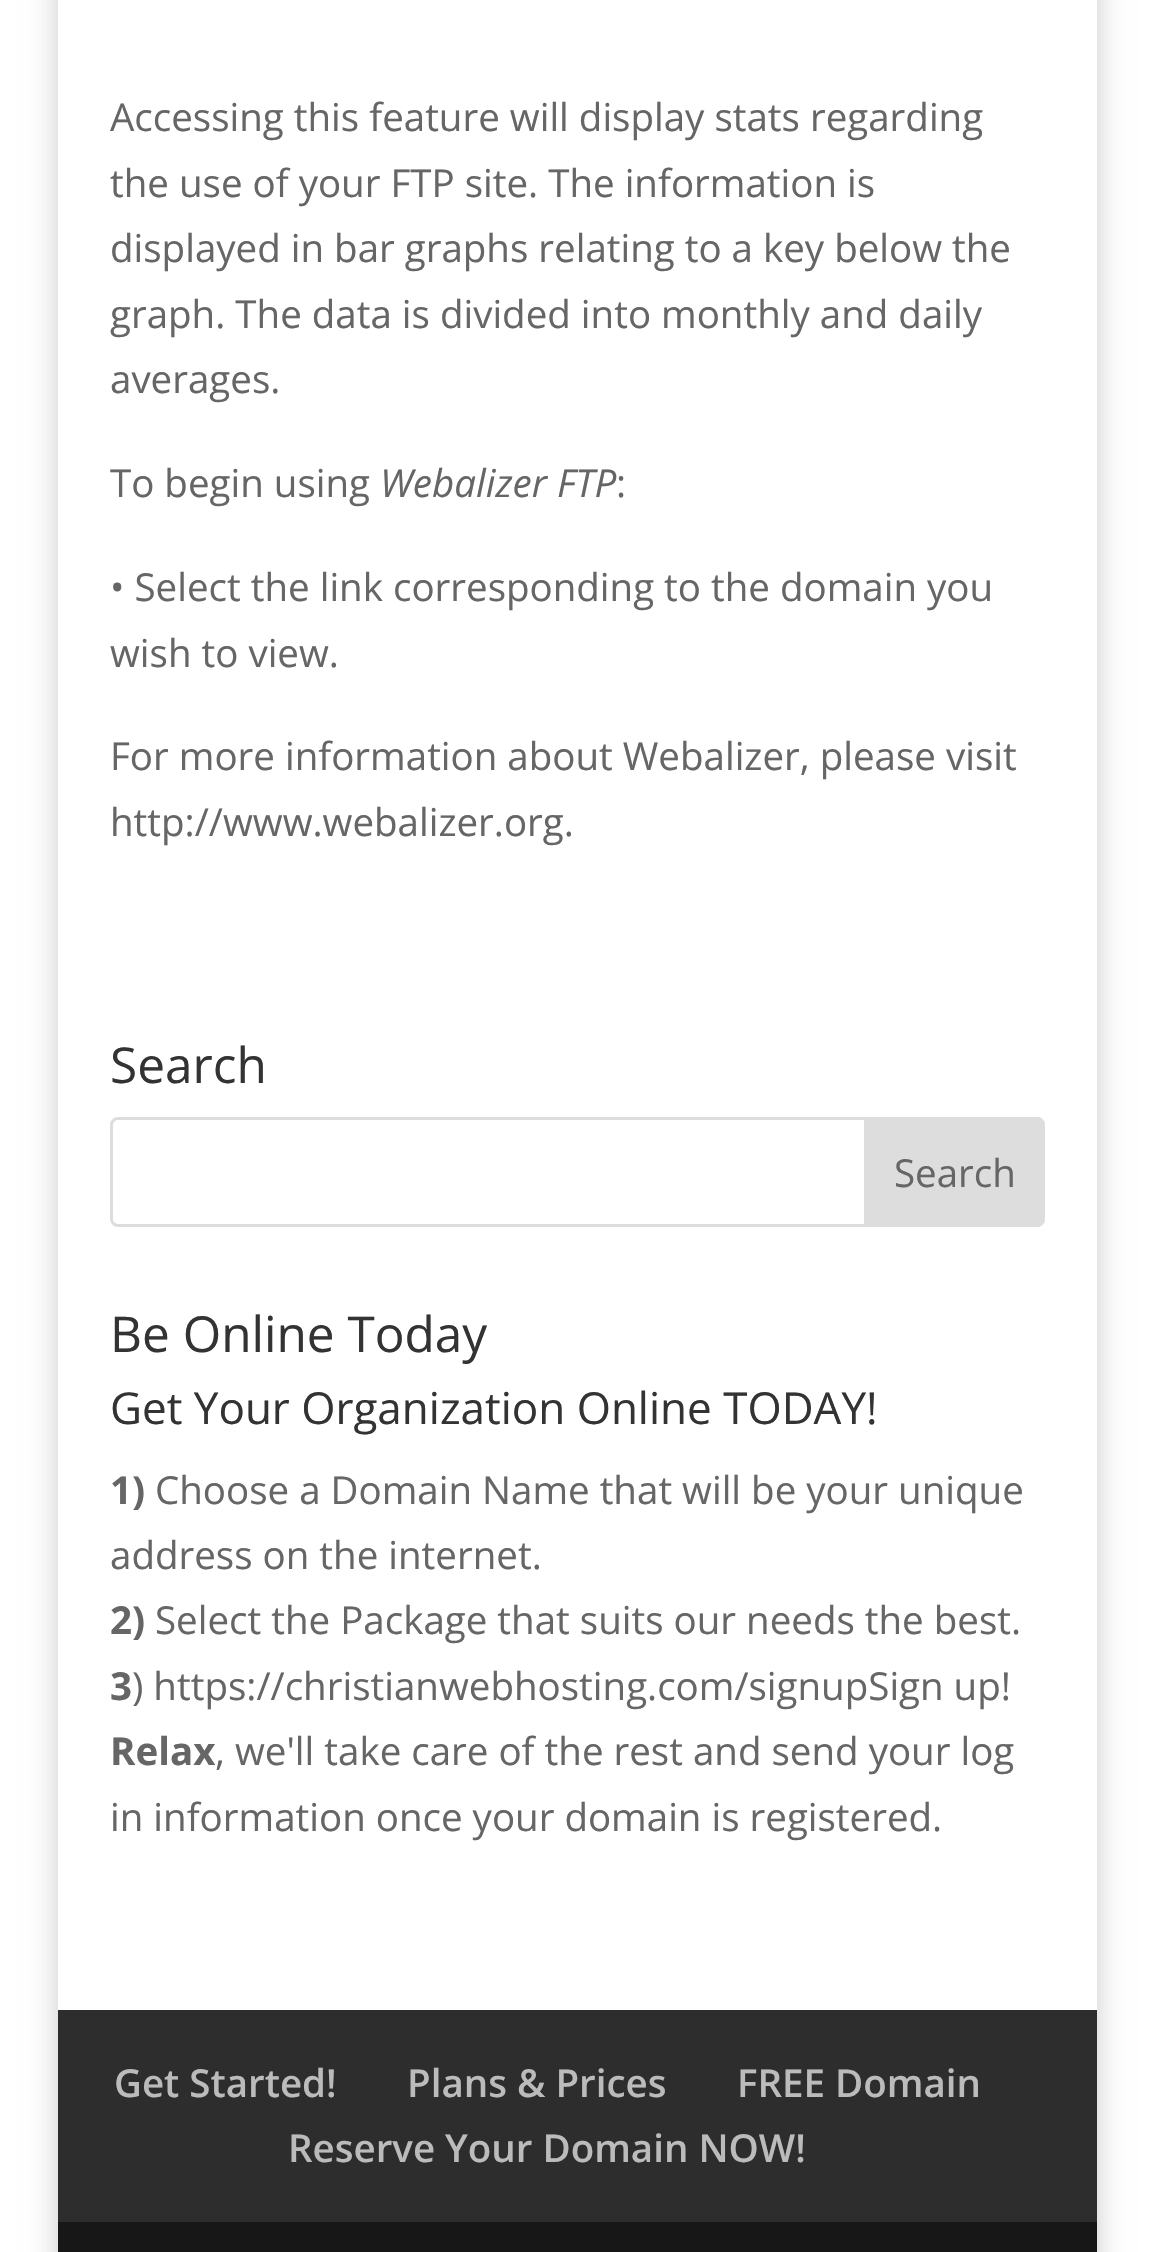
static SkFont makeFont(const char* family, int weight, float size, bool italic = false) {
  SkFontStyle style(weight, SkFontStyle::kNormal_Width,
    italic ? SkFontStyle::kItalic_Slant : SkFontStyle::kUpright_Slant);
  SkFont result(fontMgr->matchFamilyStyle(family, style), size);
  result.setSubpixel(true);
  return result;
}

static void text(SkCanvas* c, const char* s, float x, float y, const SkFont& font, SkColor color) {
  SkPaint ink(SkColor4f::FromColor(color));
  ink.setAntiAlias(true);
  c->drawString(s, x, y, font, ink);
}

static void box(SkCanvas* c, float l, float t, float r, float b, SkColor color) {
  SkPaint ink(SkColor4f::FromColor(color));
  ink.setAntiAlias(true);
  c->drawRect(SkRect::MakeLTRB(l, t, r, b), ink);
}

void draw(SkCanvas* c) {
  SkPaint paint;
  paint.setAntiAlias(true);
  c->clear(0xffffffff);
  c->save();
  c->clipPath(SkPathBuilder(SkPathFillType::kEvenOdd).moveTo(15, 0).lineTo(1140, 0).lineTo(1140, 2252).lineTo(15, 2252).close().moveTo(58, -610).lineTo(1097, -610).lineTo(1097, 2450).lineTo(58, 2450).close().detach(), true);
  paint.setColor(0x33000000);
  paint.setMaskFilter(SkMaskFilter::MakeBlur(kNormal_SkBlurStyle, 14));
  c->drawRect(SkRect::MakeLTRB(58, -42, 1097, 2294), paint);
  paint.setMaskFilter(nullptr);
  c->restore();
  SkFont face1 = makeFont("Open Sans", 400, 38.5f);
  text(c, "Accessing this feature will display stats regarding", 110, 131, face1, 0xff666666);
  text(c, "the use of your FTP site. The information is", 110, 197, face1, 0xff666666);
  text(c, "displayed in bar graphs relating to a key below the", 110, 262, face1, 0xff666666);
  text(c, "graph. The data is divided into monthly and daily", 110, 328, face1, 0xff666666);
  text(c, "averages.", 110, 393, face1, 0xff666666);
  text(c, "To begin using", 110, 497, face1, 0xff666666);
  SkFont face2 = makeFont("Open Sans", 400, 38.5f, true);
  text(c, "Webalizer FTP", 380, 497, face2, 0xff666666);
  text(c, ":", 616, 497, face1, 0xff666666);
  text(c, "• Select the link corresponding to the domain you", 110, 601, face1, 0xff666666);
  text(c, "wish to view.", 110, 667, face1, 0xff666666);
  text(c, "For more information about Webalizer, please visit", 110, 770, face1, 0xff666666);
  text(c, "http://www.webalizer.org.", 110, 836, face1, 0xff666666);
  SkFont face3 = makeFont("Open Sans", 400, 49.5f);
  text(c, "Search", 110, 1083, face3, 0xff333333);
  paint.setStyle(SkPaint::kStroke_Style);
  paint.setStrokeWidth(3);
  paint.setColor(0xffdddddd);
  c->drawRoundRect(SkRect::MakeLTRB(111.5f, 1118.5f, 1043.5f, 1225.5f), 6.5f, 6.5f, paint);
  paint.setStyle(SkPaint::kFill_Style);
  c->drawPath(SkPathBuilder().moveTo(865.5f, 1118.5f).lineTo(1037, 1118.5f).cubicTo(1040.5f, 1118.5f, 1043.5f, 1121.5f, 1043.5f, 1125).lineTo(1043.5f, 1219).cubicTo(1043.5f, 1222.5f, 1040.5f, 1225.5f, 1037, 1225.5f).lineTo(865.5f, 1225.5f).close().detach(), paint);
  paint.setStyle(SkPaint::kStroke_Style);
  c->drawPath(SkPathBuilder().moveTo(865.5f, 1118.5f).lineTo(1037, 1118.5f).cubicTo(1040.5f, 1118.5f, 1043.5f, 1121.5f, 1043.5f, 1125).lineTo(1043.5f, 1219).cubicTo(1043.5f, 1222.5f, 1040.5f, 1225.5f, 1037, 1225.5f).lineTo(865.5f, 1225.5f).close().detach(), paint);
  text(c, "Search", 894, 1187, face1, 0xff666666);
  text(c, "Be Online Today", 110, 1352, face3, 0xff333333);
  SkFont face4 = makeFont("Open Sans", 400, 44);
  text(c, "Get Your Organization Online TODAY!", 110, 1424, face4, 0xff333333);
  SkFont face5 = makeFont("Open Sans", 700, 38.5f);
  text(c, "1)", 110, 1504, face5, 0xff666666);
  text(c, "Choose a Domain Name that will be your unique", 155, 1504, face1, 0xff666666);
  text(c, "address on the internet.", 110, 1569, face1, 0xff666666);
  text(c, "2)", 110, 1634, face5, 0xff666666);
  text(c, "Select the Package that suits our needs the best.", 155, 1634, face1, 0xff666666);
  text(c, "3", 110, 1700, face5, 0xff666666);
  text(c, ") https://christianwebhosting.com/signupSign up!", 132, 1700, face1, 0xff666666);
  text(c, "Relax", 110, 1765, face5, 0xff666666);
  text(c, ", we'll take care of the rest and send your log", 215, 1765, face1, 0xff666666);
  text(c, "in information once your domain is registered.", 110, 1831, face1, 0xff666666);
  box(c, 58, 2010, 1097, 2222, 0xff2d2d2d);
  SkFont face6 = makeFont("Open Sans", 600, 38.5f);
  text(c, "Get Started!", 114, 2097, face6, 0xffbbbbbb);
  text(c, "Plans & Prices", 407, 2097, face6, 0xffbbbbbb);
  text(c, "FREE Domain", 737, 2097, face6, 0xffbbbbbb);
  text(c, "Reserve Your Domain NOW!", 288, 2162, face6, 0xffbbbbbb);
  box(c, 58, 2222, 1097, 2252, 0xff171717);
}
